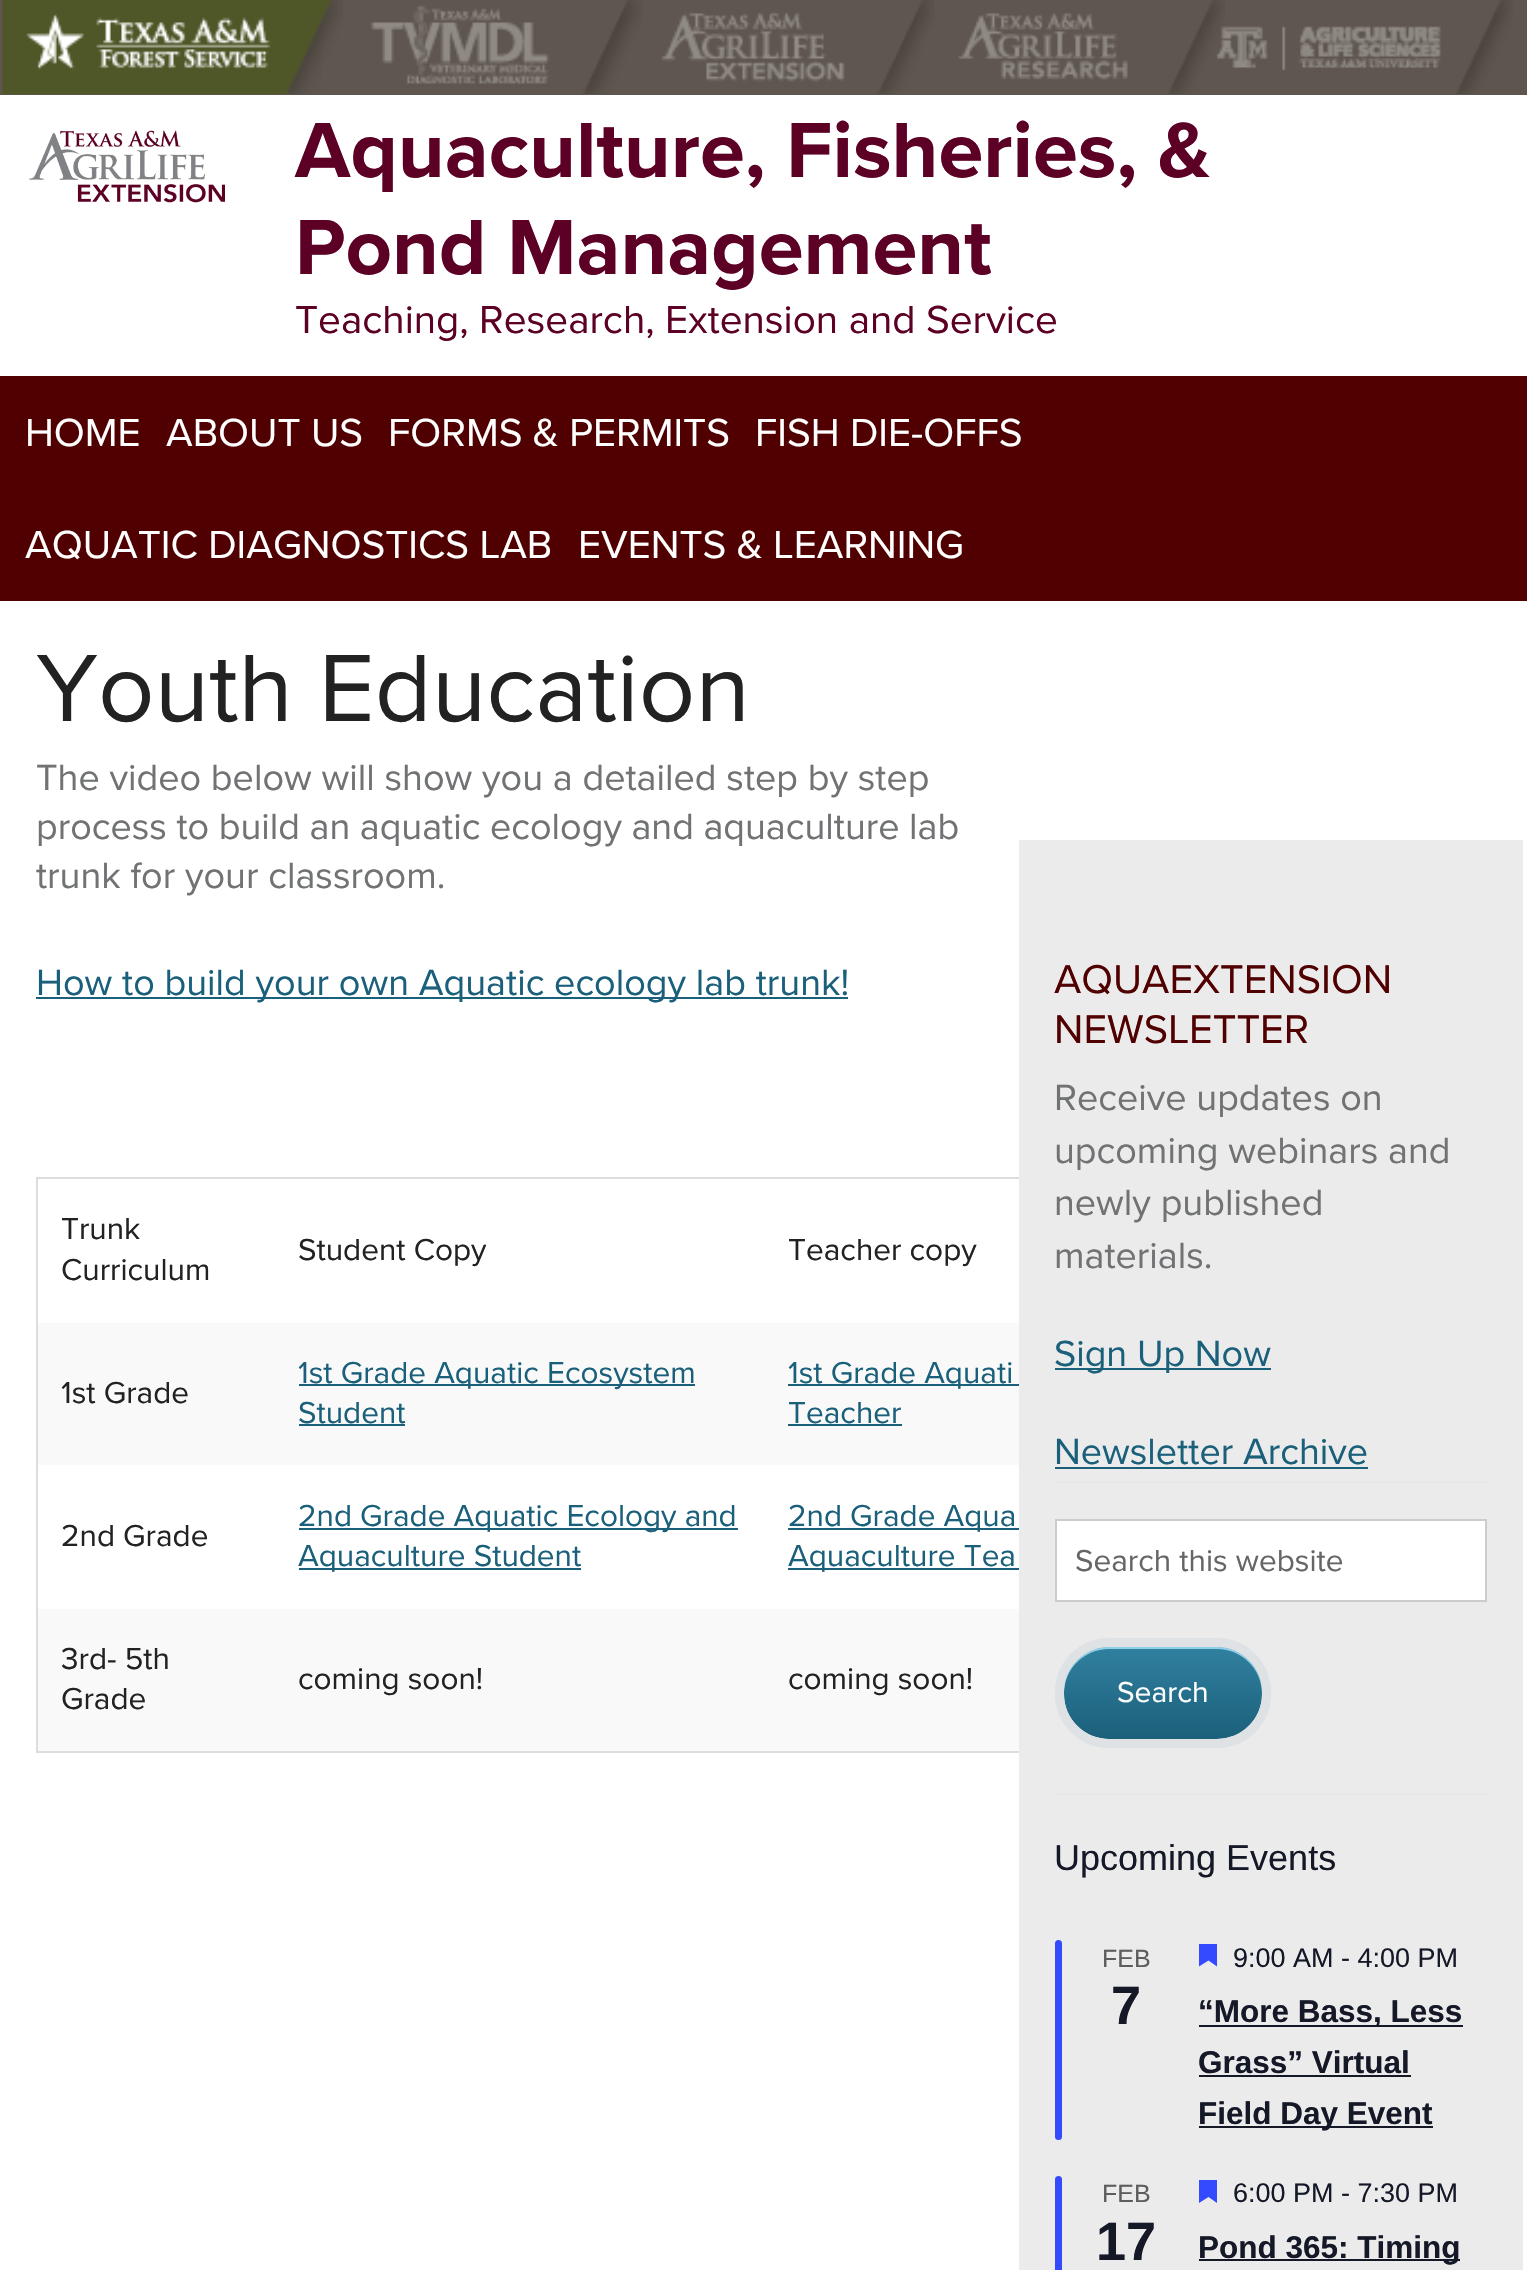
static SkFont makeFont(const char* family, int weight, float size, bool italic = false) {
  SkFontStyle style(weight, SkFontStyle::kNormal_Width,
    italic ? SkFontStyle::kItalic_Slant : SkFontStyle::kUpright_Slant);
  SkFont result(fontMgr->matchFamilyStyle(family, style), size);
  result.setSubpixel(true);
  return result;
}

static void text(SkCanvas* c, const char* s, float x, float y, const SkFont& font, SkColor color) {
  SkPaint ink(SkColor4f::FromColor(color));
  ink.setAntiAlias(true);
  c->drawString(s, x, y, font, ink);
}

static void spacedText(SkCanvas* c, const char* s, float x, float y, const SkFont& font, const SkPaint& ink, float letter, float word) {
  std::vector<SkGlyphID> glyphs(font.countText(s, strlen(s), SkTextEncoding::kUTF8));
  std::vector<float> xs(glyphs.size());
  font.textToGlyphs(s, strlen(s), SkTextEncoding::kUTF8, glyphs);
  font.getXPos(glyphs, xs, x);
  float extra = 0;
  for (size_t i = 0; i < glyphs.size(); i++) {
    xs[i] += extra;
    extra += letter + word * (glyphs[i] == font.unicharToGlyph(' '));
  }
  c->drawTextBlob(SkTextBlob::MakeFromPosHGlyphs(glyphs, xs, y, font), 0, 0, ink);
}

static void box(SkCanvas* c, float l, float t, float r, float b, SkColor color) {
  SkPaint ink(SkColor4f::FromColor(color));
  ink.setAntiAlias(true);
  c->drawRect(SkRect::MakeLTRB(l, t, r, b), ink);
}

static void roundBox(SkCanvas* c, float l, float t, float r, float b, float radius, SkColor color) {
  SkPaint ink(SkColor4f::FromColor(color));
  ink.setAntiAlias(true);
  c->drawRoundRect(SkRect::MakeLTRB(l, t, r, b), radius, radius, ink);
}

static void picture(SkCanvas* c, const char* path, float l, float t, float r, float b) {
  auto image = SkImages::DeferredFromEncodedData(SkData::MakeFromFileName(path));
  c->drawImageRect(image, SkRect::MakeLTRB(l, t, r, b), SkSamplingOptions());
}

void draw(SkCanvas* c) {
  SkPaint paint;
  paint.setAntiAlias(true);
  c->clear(0xffffffff);
  box(c, 0, 0, 1527, 95, 0xff5e564e);
  picture(c, "img_05.png", 1167, 0, 1513, 94);
  picture(c, "img_04.png", 877, 0, 1225, 94);
  picture(c, "img_03.png", 582, 0, 935, 94);
  picture(c, "img_02.png", 322, 0, 643, 94);
  picture(c, "img_01.png", 1, 0, 343, 95);
  picture(c, "img_06.png", 29, 130, 225, 203);
  SkFont face1 = makeFont("Proxima Nova", 700, 81);
  text(c, "Aquaculture, Fisheries, &", 295, 177, face1, 0xff5d0025);
  text(c, "Pond Management", 295, 274, face1, 0xff5d0025);
  SkFont face2 = makeFont("Proxima Nova", 400, 40.5f);
  text(c, "Teaching, Research, Extension and Service", 295, 333, face2, 0xff5d0025);
  box(c, 0, 376, 1527, 601, 0xff500000);
  text(c, "HOME", 25, 446, face2, 0xffffffff);
  text(c, "ABOUT US", 166, 446, face2, 0xffffffff);
  text(c, "FORMS & PERMITS", 388, 446, face2, 0xffffffff);
  text(c, "FISH DIE-OFFS", 755, 446, face2, 0xffffffff);
  text(c, "AQUATIC DIAGNOSTICS LAB", 25, 558, face2, 0xffffffff);
  text(c, "EVENTS & LEARNING", 578, 558, face2, 0xffffffff);
  SkFont face3 = makeFont("Proxima Nova", 400, 99);
  text(c, "Youth Education", 36, 721, face3, 0xff222222);
  SkFont face4 = makeFont("Proxima Nova", 400, 37.8f);
  text(c, "The video below will show you a detailed step by step", 36, 790, face4, 0xff707274);
  paint.setColor(0xff707274);
  spacedText(c, "process to build an aquatic ecology and aquaculture lab", 36, 839, face4, paint, 0, -0.25f);
  text(c, "trunk for your classroom.", 36, 888, face4, 0xff707274);
  box(c, 36, 997, 848, 999, 0xff1b607b);
  text(c, "How to build your own Aquatic ecology lab trunk!", 36, 995, face4, 0xff1b607b);
  box(c, 36, 1177, 1019, 1179, 0xffdddddd);
  box(c, 36, 1751, 1019, 1753, 0xffdddddd);
  box(c, 36, 1177, 38, 1753, 0xffdddddd);
  SkFont face5 = makeFont("Proxima Nova", 400, 31.5f);
  text(c, "Trunk", 61, 1239, face5, 0xff222222);
  text(c, "Curriculum", 61, 1280, face5, 0xff222222);
  text(c, "Student Copy", 298, 1260, face5, 0xff222222);
  text(c, "Teacher copy", 788, 1260, face5, 0xff222222);
  box(c, 38, 1323, 1019, 1465, 0xfff9f9f9);
  text(c, "1st Grade", 61, 1403, face5, 0xff222222);
  box(c, 299, 1384, 695, 1386, 0xff1b607b);
  text(c, "1st Grade Aquatic Ecosystem", 298, 1383, face5, 0xff1b607b);
  text(c, "Student", 298, 1423, face5, 0xff1b607b);
  box(c, 299, 1424, 405, 1426, 0xff1b607b);
  box(c, 788, 1384, 1019, 1386, 0xff1b607b);
  text(c, "1st Grade Aquati", 788, 1383, face5, 0xff1b607b);
  text(c, "Teacher", 788, 1423, face5, 0xff1b607b);
  box(c, 788, 1424, 902, 1426, 0xff1b607b);
  text(c, "2nd Grade", 61, 1546, face5, 0xff222222);
  box(c, 299, 1528, 738, 1530, 0xff1b607b);
  text(c, "2nd Grade Aquatic Ecology and", 298, 1526, face5, 0xff1b607b);
  box(c, 299, 1568, 581, 1570, 0xff1b607b);
  text(c, "Aquaculture Student", 298, 1566, face5, 0xff1b607b);
  box(c, 788, 1528, 1019, 1530, 0xff1b607b);
  text(c, "2nd Grade Aqua", 788, 1526, face5, 0xff1b607b);
  box(c, 788, 1568, 1019, 1570, 0xff1b607b);
  text(c, "Aquaculture Tea", 788, 1566, face5, 0xff1b607b);
  box(c, 38, 1609, 1019, 1751, 0xfff9f9f9);
  text(c, "3rd- 5th", 61, 1669, face5, 0xff222222);
  text(c, "Grade", 61, 1709, face5, 0xff222222);
  text(c, "coming soon!", 298, 1689, face5, 0xff222222);
  text(c, "coming soon!", 788, 1689, face5, 0xff222222);
  box(c, 1019, 840, 1523, 2270, 0xffebebeb);
  box(c, 1055, 1481, 1487, 1483, 0xffe7e7e7);
  SkFont face6 = makeFont("Proxima Nova", 400, 41.5f);
  text(c, "AQUAEXTENSION", 1054, 993, face6, 0xff500000);
  text(c, "NEWSLETTER", 1054, 1043, face6, 0xff500000);
  text(c, "Receive updates on", 1054, 1110, face4, 0xff707274);
  text(c, "upcoming webinars and", 1054, 1163, face4, 0xff707274);
  text(c, "newly published", 1054, 1215, face4, 0xff707274);
  text(c, "materials.", 1054, 1268, face4, 0xff707274);
  box(c, 1055, 1368, 1271, 1370, 0xff1b607b);
  text(c, "Sign Up Now", 1054, 1366, face4, 0xff1b607b);
  text(c, "Newsletter Archive", 1054, 1464, face4, 0xff1b607b);
  box(c, 1055, 1467, 1368, 1469, 0xff1b607b);
  box(c, 1055, 1793, 1487, 1795, 0xffe7e7e7);
  paint.setColor(0xffffffff);
  c->drawRect(SkRect::MakeLTRB(1056, 1520, 1486, 1601), paint);
  paint.setStyle(SkPaint::kStroke_Style);
  paint.setStrokeWidth(2);
  paint.setColor(0xffcccccc);
  c->drawRect(SkRect::MakeLTRB(1056, 1520, 1486, 1601), paint);
  text(c, "Search this website", 1075, 1571, face5, 0xff666666);
  paint.setStyle(SkPaint::kFill_Style);
  {
    const SkColor colors[] = {0xff31809f, 0xff1b607b};
    const float stops[] = {0, 1};
    const SkPoint ends[] = {{1163, 1647}, {1163, 1739}};
    paint.setShader(SkGradientShader::MakeLinear(ends, colors, stops, 2, SkTileMode::kClamp));
    paint.setAlpha(255);
  }
  c->drawRoundRect(SkRect::MakeLTRB(1064, 1647, 1262, 1739), 45, 45, paint);
  paint.setShader(nullptr);
  paint.setColor(0xff8fd0e9);
  c->drawPath(SkPathBuilder().moveTo(1109, 1649).lineTo(1217, 1649).cubicTo(1242, 1649, 1262, 1669, 1262, 1694).lineTo(1262, 1692).cubicTo(1262, 1667, 1242, 1647, 1217, 1647).lineTo(1109, 1647).cubicTo(1084, 1647, 1064, 1667, 1064, 1692).lineTo(1064, 1694).cubicTo(1064, 1669, 1084, 1649, 1109, 1649).close().detach(), paint);
  paint.setStyle(SkPaint::kStroke_Style);
  paint.setStrokeWidth(9);
  paint.setColor(0xffdee2e4);
  c->drawRoundRect(SkRect::MakeLTRB(1059.5f, 1642.5f, 1266.5f, 1743.5f), 49.5f, 49.5f, paint);
  SkFont face7 = makeFont("Proxima Nova", 400, 30);
  text(c, "Search", 1117, 1702, face7, 0xffffffff);
  SkFont face8 = makeFont("Liberation Sans", 400, 36);
  text(c, "Upcoming Events", 1054, 1870, face8, 0xff141827);
  roundBox(c, 1055, 1940, 1062, 2140, 3.5f, 0xff334aff);
  SkFont face9 = makeFont("Liberation Sans", 400, 25);
  text(c, "FEB", 1102, 1967, face9, 0xff5d5d5d);
  SkFont face10 = makeFont("Liberation Sans", 700, 54);
  text(c, "7", 1111, 2024, face10, 0xff141827);
  paint.setStyle(SkPaint::kFill_Style);
  paint.setColor(0xff334aff);
  c->drawPath(SkPathBuilder(SkPathFillType::kEvenOdd).moveTo(1199, 1944).lineTo(1217, 1944).lineTo(1217, 1966.5f).lineTo(1208.5f, 1960.5f).lineTo(1199, 1966.5f).close().detach(), paint);
  SkFont face11 = makeFont("Liberation Sans", 400, 27);
  text(c, "9:00 AM - 4:00 PM", 1233, 1967, face11, 0xff141827);
  box(c, 1199, 2025, 1463, 2027, 0xff141827);
  SkFont face12 = makeFont("Liberation Sans", 700, 31.5f);
  text(c, "“More Bass, Less", 1198, 2022, face12, 0xff141827);
  text(c, "Grass” Virtual", 1198, 2073, face12, 0xff141827);
  box(c, 1199, 2075, 1411, 2077, 0xff141827);
  box(c, 1199, 2126, 1433, 2128, 0xff141827);
  text(c, "Field Day Event", 1198, 2124, face12, 0xff141827);
  roundBox(c, 1055, 2176, 1062, 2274, 3.5f, 0xff334aff);
  text(c, "FEB", 1102, 2202, face9, 0xff5d5d5d);
  text(c, "17", 1096, 2260, face10, 0xff141827);
  c->drawPath(SkPathBuilder(SkPathFillType::kEvenOdd).moveTo(1199, 2180).lineTo(1217, 2180).lineTo(1217, 2203).lineTo(1208.5f, 2197).lineTo(1199, 2203).close().detach(), paint);
  text(c, "6:00 PM - 7:30 PM", 1233, 2202, face11, 0xff141827);
  box(c, 1199, 2259, 1460, 2261, 0xff141827);
  text(c, "Pond 365: Timing", 1198, 2258, face12, 0xff141827);
}
